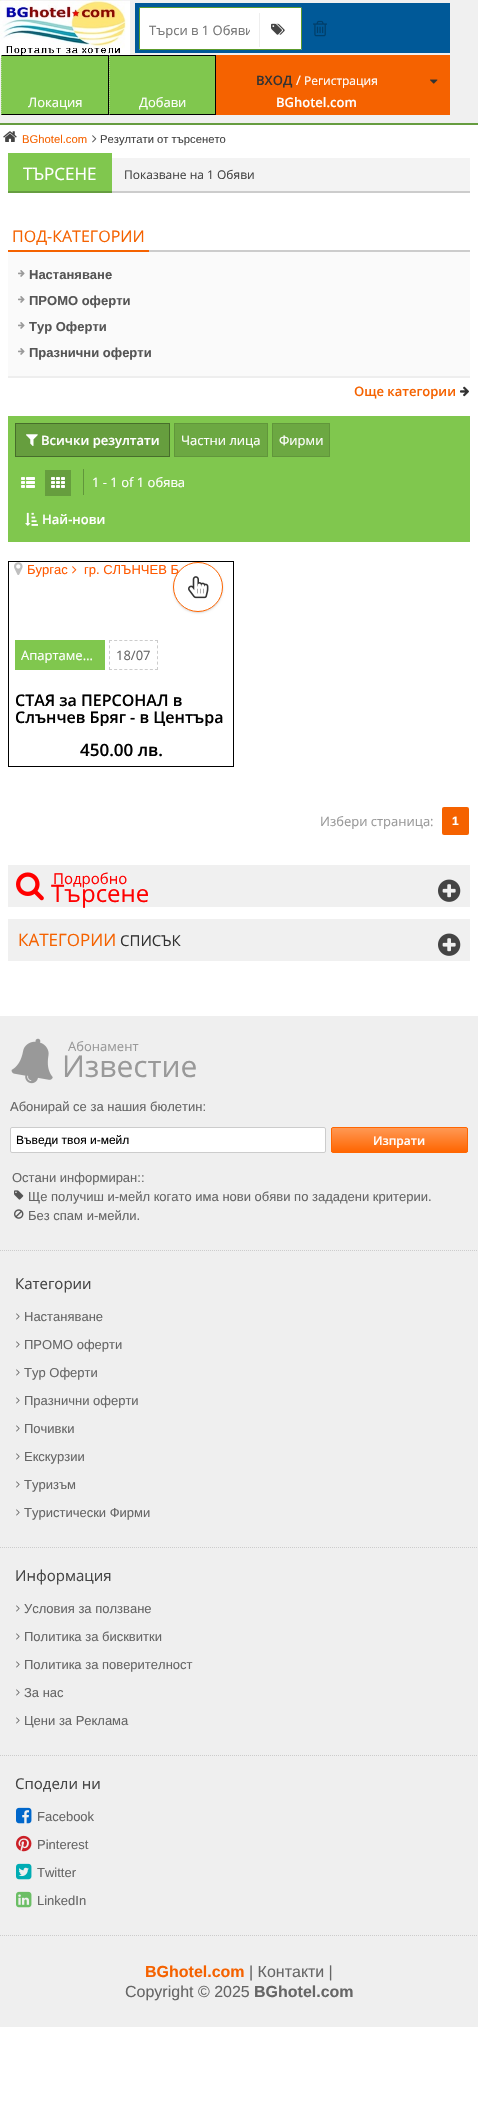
static SkFont makeFont(const char* family, int weight, float size, bool italic = false) {
  SkFontStyle style(weight, SkFontStyle::kNormal_Width,
    italic ? SkFontStyle::kItalic_Slant : SkFontStyle::kUpright_Slant);
  SkFont result(fontMgr->matchFamilyStyle(family, style), size);
  result.setSubpixel(true);
  return result;
}

static void text(SkCanvas* c, const char* s, float x, float y, const SkFont& font, SkColor color) {
  SkPaint ink(SkColor4f::FromColor(color));
  ink.setAntiAlias(true);
  c->drawString(s, x, y, font, ink);
}

static void box(SkCanvas* c, float l, float t, float r, float b, SkColor color) {
  SkPaint ink(SkColor4f::FromColor(color));
  ink.setAntiAlias(true);
  c->drawRect(SkRect::MakeLTRB(l, t, r, b), ink);
}

static void roundBox(SkCanvas* c, float l, float t, float r, float b, float radius, SkColor color) {
  SkPaint ink(SkColor4f::FromColor(color));
  ink.setAntiAlias(true);
  c->drawRoundRect(SkRect::MakeLTRB(l, t, r, b), radius, radius, ink);
}

static void picture(SkCanvas* c, const char* path, float l, float t, float r, float b) {
  auto image = SkImages::DeferredFromEncodedData(SkData::MakeFromFileName(path));
  c->drawImageRect(image, SkRect::MakeLTRB(l, t, r, b), SkSamplingOptions());
}

void draw(SkCanvas* c) {
  SkPaint paint;
  paint.setAntiAlias(true);
  c->clear(0xffffffff);
  box(c, 0, 0, 478, 123, 0xfff0f0f0);
  box(c, 0, 123, 478, 125, 0xff669d40);
  picture(c, "img_01.png", 0, 0, 130, 58);
  box(c, 135, 3, 450, 53, 0xff005998);
  paint.setColor(0xffffffff);
  c->drawPath(SkPathBuilder().moveTo(141, 7).lineTo(259, 7).lineTo(259, 50).lineTo(141, 50).cubicTo(140, 50, 139, 49, 139, 48).lineTo(139, 9).cubicTo(139, 8, 140, 7, 141, 7).close().detach(), paint);
  box(c, 140, 7, 259, 8, 0xff5c9b2c);
  box(c, 140, 49, 259, 50, 0xff5c9b2c);
  box(c, 139, 8, 140, 49, 0xff5c9b2c);
  c->save();
  c->clipRect(SkRect::MakeLTRB(149, 21, 250, 39));
  SkFont face1 = makeFont("Open Sans", 400, 13);
  text(c, "Търси в 1 Обяви", 149, 35, face1, 0xff757575);
  c->restore();
  c->drawPath(SkPathBuilder().moveTo(259, 7).lineTo(300, 7).cubicTo(301, 7, 302, 8, 302, 9).lineTo(302, 48).cubicTo(302, 49, 301, 50, 300, 50).lineTo(259, 50).close().detach(), paint);
  box(c, 259, 7, 301, 8, 0xff5c9b2c);
  box(c, 301, 8, 302, 49, 0xff5c9b2c);
  box(c, 259, 49, 301, 50, 0xff5c9b2c);
  box(c, 259, 13, 260, 47, 0xffeeeeee);
  picture(c, "img_02.png", 271, 23, 285, 35);
  picture(c, "img_03.png", 313, 20, 327, 37);
  box(c, 1, 55, 108, 115, 0xff80c74e);
  paint.setColor(0xff000000);
  c->drawPath(SkPathBuilder().moveTo(1, 55).lineTo(109, 55).lineTo(108, 56).lineTo(2, 56).close().detach(), paint);
  box(c, 108, 55, 109, 115, 0xff000000);
  c->drawPath(SkPathBuilder().moveTo(109, 115).lineTo(1, 115).lineTo(2, 114).lineTo(108, 114).close().detach(), paint);
  paint.setStyle(SkPaint::kStroke_Style);
  paint.setStrokeWidth(1);
  paint.setColor(0x4dffffff);
  paint.setPathEffect(SkDashPathEffect::Make({{1, 1}}, 0));
  c->drawPath(SkPathBuilder().moveTo(1.5f, 55).lineTo(1.5f, 115).detach(), paint);
  paint.setPathEffect(nullptr);
  text(c, "Локация", 28, 107, face1, 0xffffffff);
  box(c, 109, 55, 215, 115, 0xff80c74e);
  paint.setStyle(SkPaint::kFill_Style);
  paint.setColor(0xff000000);
  c->drawPath(SkPathBuilder().moveTo(109, 55).lineTo(216, 55).lineTo(215, 56).lineTo(110, 56).close().detach(), paint);
  box(c, 215, 55, 216, 115, 0xff000000);
  c->drawPath(SkPathBuilder().moveTo(216, 115).lineTo(109, 115).lineTo(110, 114).lineTo(215, 114).close().detach(), paint);
  paint.setStyle(SkPaint::kStroke_Style);
  paint.setColor(0x4dffffff);
  paint.setPathEffect(SkDashPathEffect::Make({{1, 1}}, 0));
  c->drawPath(SkPathBuilder().moveTo(109.5f, 55).lineTo(109.5f, 115).detach(), paint);
  paint.setPathEffect(nullptr);
  text(c, "Добави", 139, 107, face1, 0xffffffff);
  box(c, 216, 55, 450, 115, 0xfff56200);
  SkFont face2 = makeFont("Open Sans", 600, 13);
  text(c, "ВХОД", 256, 85, face2, 0xff333333);
  text(c, "/", 296, 85, face1, 0xffffffff);
  SkFont face3 = makeFont("Open Sans", 400, 12);
  text(c, "Регистрация", 304, 85, face3, 0xffffffff);
  picture(c, "img_04.png", 430, 79, 438, 84);
  text(c, "BGhotel.com", 276, 107, face2, 0xffffffff);
  picture(c, "img_05.png", 3, 131, 17, 142);
  SkFont face4 = makeFont("Liberation Sans", 400, 11.25f);
  text(c, "BGhotel.com", 22, 143, face4, 0xfff56200);
  picture(c, "img_06.png", 92, 135, 97, 143);
  text(c, "Резултати от търсенето", 100, 143, face4, 0xff444444);
  box(c, 112, 158, 470, 191, 0xfff3f3f3);
  box(c, 112, 191, 470, 193, 0xffcccccc);
  box(c, 8, 153, 112, 191, 0xff80c74e);
  box(c, 8, 191, 112, 193, 0xff669d40);
  SkFont face5 = makeFont("Open Sans", 400, 17);
  text(c, "ТЪРСЕНЕ", 23, 180, face5, 0xffffffff);
  text(c, "Показване на 1 Обяви", 124, 179, face3, 0xff444444);
  box(c, 149, 250, 470, 252, 0xffcccccc);
  box(c, 8, 250, 149, 252, 0xfff56200);
  SkFont face6 = makeFont("Open Sans", 400, 16);
  text(c, "ПОД-КАТЕГОРИИ", 12, 242, face6, 0xfff56200);
  box(c, 8, 252, 470, 376, 0xfffafafa);
  box(c, 8, 376, 470, 378, 0xffeeeeee);
  picture(c, "img_07.png", 18, 270, 25, 277);
  SkFont face7 = makeFont("Liberation Sans", 700, 13);
  text(c, "Настаняване", 29, 279, face7, 0xff555555);
  picture(c, "img_07.png", 18, 296, 25, 303);
  text(c, "ПРОМО оферти", 29, 305, face7, 0xff555555);
  picture(c, "img_07.png", 18, 322, 25, 329);
  text(c, "Тур Оферти", 29, 331, face7, 0xff555555);
  picture(c, "img_07.png", 18, 348, 25, 355);
  text(c, "Празнични оферти", 29, 357, face7, 0xff555555);
  text(c, "Още категории", 354, 396, face2, 0xfff56200);
  picture(c, "img_08.png", 460, 386, 469, 397);
  box(c, 8, 416, 470, 542, 0xff80c74e);
  paint.setStyle(SkPaint::kFill_Style);
  paint.setColor(0xff669e3e);
  c->drawRect(SkRect::MakeLTRB(15.5f, 423.5f, 169.5f, 456.5f), paint);
  paint.setStyle(SkPaint::kStroke_Style);
  paint.setColor(0xff476e2b);
  c->drawRect(SkRect::MakeLTRB(15.5f, 423.5f, 169.5f, 456.5f), paint);
  picture(c, "img_09.png", 26, 434, 38, 446);
  text(c, "Всички резултати", 41, 445, face2, 0xffffffff);
  paint.setStyle(SkPaint::kFill_Style);
  paint.setColor(0xff6ca842);
  c->drawRect(SkRect::MakeLTRB(174.5f, 423.5f, 267.5f, 456.5f), paint);
  paint.setStyle(SkPaint::kStroke_Style);
  paint.setColor(0xff61963b);
  c->drawRect(SkRect::MakeLTRB(174.5f, 423.5f, 267.5f, 456.5f), paint);
  text(c, "Частни лица", 181, 445, face1, 0xffffffff);
  paint.setStyle(SkPaint::kFill_Style);
  paint.setColor(0xff6ca842);
  c->drawRect(SkRect::MakeLTRB(272.5f, 423.5f, 329.5f, 456.5f), paint);
  paint.setStyle(SkPaint::kStroke_Style);
  paint.setColor(0xff61963b);
  c->drawRect(SkRect::MakeLTRB(272.5f, 423.5f, 329.5f, 456.5f), paint);
  text(c, "Фирми", 279, 445, face1, 0xffffffff);
  picture(c, "img_10.png", 21, 477, 35, 488);
  box(c, 45, 470, 71, 496, 0xff669e3e);
  picture(c, "img_11.png", 51, 477, 65, 488);
  box(c, 83, 469, 84, 495, 0xff61963b);
  text(c, "1 - 1 of 1 обява", 92, 487, face1, 0xffffffff);
  picture(c, "img_12.png", 25, 512, 38, 526);
  text(c, "Най-нови", 42, 524, face2, 0xffffffff);
  paint.setColor(0xff000000);
  c->drawRect(SkRect::MakeLTRB(8.5f, 561.5f, 233.5f, 766.5f), paint);
  picture(c, "img_13.png", 14, 562, 23, 575);
  SkFont face8 = makeFont("Liberation Sans", 400, 13);
  text(c, "Бургас", 27, 574, face8, 0xffff5900);
  picture(c, "img_14.png", 72, 566, 77, 574);
  text(c, "гр. СЛЪНЧЕВ Б", 84, 574, face8, 0xffff5900);
  paint.setStyle(SkPaint::kFill_Style);
  paint.setColor(0x26000000);
  paint.setMaskFilter(SkMaskFilter::MakeBlur(kNormal_SkBlurStyle, 1));
  c->drawRoundRect(SkRect::MakeLTRB(173, 563, 223, 613), 25, 25, paint);
  paint.setMaskFilter(nullptr);
  paint.setColor(0xffffffff);
  c->drawCircle(198, 587, 24.5f, paint);
  paint.setStyle(SkPaint::kStroke_Style);
  paint.setColor(0xffff6601);
  c->drawCircle(198, 587, 24.5f, paint);
  picture(c, "img_15.png", 188, 576, 209, 599);
  box(c, 15, 640, 105, 670, 0xff80c74e);
  text(c, "Апартаме…", 21, 660, face1, 0xffffffff);
  paint.setColor(0xffcccccc);
  paint.setPathEffect(SkDashPathEffect::Make({{3, 2.11f}}, 0));
  c->drawPath(SkPathBuilder().moveTo(109, 640.5f).lineTo(158, 640.5f).detach(), paint);
  paint.setPathEffect(nullptr);
  paint.setPathEffect(SkDashPathEffect::Make({{3, 2.4f}}, 0));
  c->drawPath(SkPathBuilder().moveTo(157.5f, 640).lineTo(157.5f, 670).detach(), paint);
  paint.setPathEffect(nullptr);
  paint.setPathEffect(SkDashPathEffect::Make({{3, 2.11f}}, 0));
  c->drawPath(SkPathBuilder().moveTo(109, 669.5f).lineTo(158, 669.5f).detach(), paint);
  paint.setPathEffect(nullptr);
  paint.setPathEffect(SkDashPathEffect::Make({{3, 2.4f}}, 0));
  c->drawPath(SkPathBuilder().moveTo(109.5f, 640).lineTo(109.5f, 670).detach(), paint);
  paint.setPathEffect(nullptr);
  text(c, "18/07", 116, 660, face1, 0xff666666);
  SkFont face9 = makeFont("Open Sans", 600, 16);
  text(c, "СТАЯ за ПЕРСОНАЛ в", 15, 706, face9, 0xff000000);
  c->save();
  c->clipRect(SkRect::MakeLTRB(9, 692, 233, 726));
  text(c, "Слънчев Бряг - в Центъра", 15, 723, face9, 0xff000000);
  c->restore();
  SkFont face10 = makeFont("Open Sans", 600, 17);
  text(c, "450.00 лв.", 80, 756, face10, 0xff000000);
  text(c, "Избери страница:", 320, 826, face1, 0xff999999);
  roundBox(c, 442, 807, 469, 835, 2, 0xfff56200);
  SkFont face11 = makeFont("Liberation Sans", 700, 12);
  text(c, "1", 452, 825, face11, 0xffffffff);
  box(c, 8, 865, 470, 907, 0xfff0f0f0);
  picture(c, "img_16.png", 16, 872, 44, 901);
  SkFont face12 = makeFont("Open Sans", 400, 15);
  text(c, "Подробно", 53, 884, face12, 0xffff0000);
  SkFont face13 = makeFont("Open Sans", 400, 24);
  text(c, "Търсене", 51, 902, face13, 0xffff0000);
  picture(c, "img_17.png", 438, 879, 461, 902);
  box(c, 8, 919, 470, 961, 0xfff0f0f0);
  text(c, "КАТЕГОРИИ", 18, 946, face5, 0xfff56200);
  text(c, "СПИСЪК", 120, 946, face12, 0xff333333);
  picture(c, "img_17.png", 438, 933, 461, 956);
  box(c, 0, 1016, 478, 2027, 0xffefefef);
  paint.setPathEffect(SkDashPathEffect::Make({{1, 1}}, 0));
  c->drawPath(SkPathBuilder().moveTo(0, 1250.5f).lineTo(478, 1250.5f).detach(), paint);
  paint.setPathEffect(nullptr);
  picture(c, "img_18.png", 11, 1038, 53, 1084);
  text(c, "Абонамент", 68, 1051, face1, 0xff999999);
  SkFont face14 = makeFont("Open Sans", 400, 30);
  text(c, "Известие", 62, 1077, face14, 0xff999999);
  text(c, "Абонирай се за нашия бюлетин:", 10, 1111, face8, 0xff666666);
  paint.setStyle(SkPaint::kFill_Style);
  paint.setColor(0xffffffff);
  c->drawRoundRect(SkRect::MakeLTRB(10.5f, 1127.5f, 325.5f, 1152.5f), 1.5f, 1.5f, paint);
  paint.setStyle(SkPaint::kStroke_Style);
  paint.setColor(0xffcccccc);
  c->drawRoundRect(SkRect::MakeLTRB(10.5f, 1127.5f, 325.5f, 1152.5f), 1.5f, 1.5f, paint);
  SkFont face15 = makeFont("Liberation Sans", 400, 12);
  text(c, "Въведи твоя и-мейл", 16, 1144, face15, 0xff000000);
  c->save();
  c->clipPath(SkPathBuilder().moveTo(333, 1127).lineTo(466, 1127).cubicTo(467, 1127, 468, 1128, 468, 1129).lineTo(468, 1151).cubicTo(468, 1152, 467, 1153, 466, 1153).lineTo(333, 1153).cubicTo(332, 1153, 331, 1152, 331, 1151).lineTo(331, 1129).cubicTo(331, 1128, 332, 1127, 333, 1127).close().detach(), true);
  paint.setStyle(SkPaint::kFill_Style);
  {
    const SkColor colors[] = {0xffff9854, 0xffff6601};
    const float stops[] = {0, 1};
    const SkPoint ends[] = {{400, 1128}, {400, 1152}};
    paint.setShader(SkGradientShader::MakeLinear(ends, colors, stops, 2, SkTileMode::kClamp));
    paint.setAlpha(255);
  }
  c->drawRect(SkRect::MakeLTRB(331, 1128, 468, 1152), paint);
  c->restore();
  paint.setStyle(SkPaint::kStroke_Style);
  paint.setShader(nullptr);
  paint.setColor(0xffff6601);
  c->drawRoundRect(SkRect::MakeLTRB(331.5f, 1127.5f, 467.5f, 1152.5f), 1.5f, 1.5f, paint);
  SkFont face16 = makeFont("Open Sans", 600, 12);
  text(c, "Изпрати", 373, 1145, face16, 0xffffffff);
  text(c, "Остани информиран::", 12, 1182, face8, 0xff666666);
  picture(c, "img_19.png", 14, 1190, 24, 1200);
  text(c, "Ще получиш и-мейл когато има нови обяви по зададени критерии.", 28, 1201, face8, 0xff666666);
  picture(c, "img_20.png", 14, 1209, 24, 1219);
  text(c, "Без спам и-мейли.", 28, 1220, face8, 0xff666666);
  paint.setColor(0xffcccccc);
  paint.setPathEffect(SkDashPathEffect::Make({{1, 1}}, 0));
  c->drawPath(SkPathBuilder().moveTo(0, 1547.5f).lineTo(478, 1547.5f).detach(), paint);
  paint.setPathEffect(nullptr);
  text(c, "Категории", 15, 1289, face12, 0xff444444);
  picture(c, "img_21.png", 16, 1313, 20, 1320);
  text(c, "Настаняване", 24, 1321, face8, 0xff666666);
  picture(c, "img_21.png", 16, 1341, 20, 1348);
  text(c, "ПРОМО оферти", 24, 1349, face8, 0xff666666);
  picture(c, "img_21.png", 16, 1369, 20, 1376);
  text(c, "Тур Оферти", 24, 1377, face8, 0xff666666);
  picture(c, "img_21.png", 16, 1397, 20, 1404);
  text(c, "Празнични оферти", 24, 1405, face8, 0xff666666);
  picture(c, "img_21.png", 16, 1425, 20, 1432);
  text(c, "Почивки", 24, 1433, face8, 0xff666666);
  picture(c, "img_21.png", 16, 1453, 20, 1460);
  text(c, "Екскурзии", 24, 1461, face8, 0xff666666);
  picture(c, "img_21.png", 16, 1481, 20, 1488);
  text(c, "Туризъм", 24, 1489, face8, 0xff666666);
  picture(c, "img_21.png", 16, 1509, 20, 1516);
  text(c, "Туристически Фирми", 24, 1517, face8, 0xff666666);
  paint.setPathEffect(SkDashPathEffect::Make({{1, 1}}, 0));
  c->drawPath(SkPathBuilder().moveTo(0, 1755.5f).lineTo(478, 1755.5f).detach(), paint);
  paint.setPathEffect(nullptr);
  text(c, "Информация", 15, 1581, face12, 0xff444444);
  picture(c, "img_21.png", 16, 1605, 20, 1612);
  text(c, "Условия за ползване", 24, 1613, face8, 0xff666666);
  picture(c, "img_21.png", 16, 1633, 20, 1640);
  text(c, "Политика за бисквитки", 24, 1641, face8, 0xff666666);
  picture(c, "img_21.png", 16, 1661, 20, 1668);
  text(c, "Политика за поверителност", 24, 1669, face8, 0xff666666);
  picture(c, "img_21.png", 16, 1689, 20, 1696);
  text(c, "За нас", 24, 1697, face8, 0xff666666);
  picture(c, "img_21.png", 16, 1717, 20, 1724);
  text(c, "Цени за Реклама", 24, 1725, face8, 0xff666666);
  paint.setPathEffect(SkDashPathEffect::Make({{1, 1}}, 0));
  c->drawPath(SkPathBuilder().moveTo(0, 1935.5f).lineTo(478, 1935.5f).detach(), paint);
  paint.setPathEffect(nullptr);
  text(c, "Сподели ни", 15, 1789, face12, 0xff444444);
  picture(c, "img_22.png", 16, 1807, 32, 1824);
  text(c, "Facebook", 37, 1821, face8, 0xff666666);
  picture(c, "img_23.png", 16, 1835, 32, 1852);
  text(c, "Pinterest", 37, 1849, face8, 0xff666666);
  picture(c, "img_24.png", 16, 1863, 32, 1880);
  text(c, "Twitter", 37, 1877, face8, 0xff666666);
  picture(c, "img_25.png", 16, 1891, 32, 1908);
  text(c, "LinkedIn", 37, 1905, face8, 0xff666666);
  SkFont face17 = makeFont("Liberation Sans", 700, 16);
  text(c, "BGhotel.com", 145, 1977, face17, 0xfff56200);
  SkFont face18 = makeFont("Liberation Sans", 400, 16);
  text(c, "| Контакти |", 249, 1977, face18, 0xff666666);
  text(c, "Copyright © 2025", 125, 1997, face18, 0xff666666);
  text(c, "BGhotel.com", 254, 1997, face17, 0xff666666);
}
